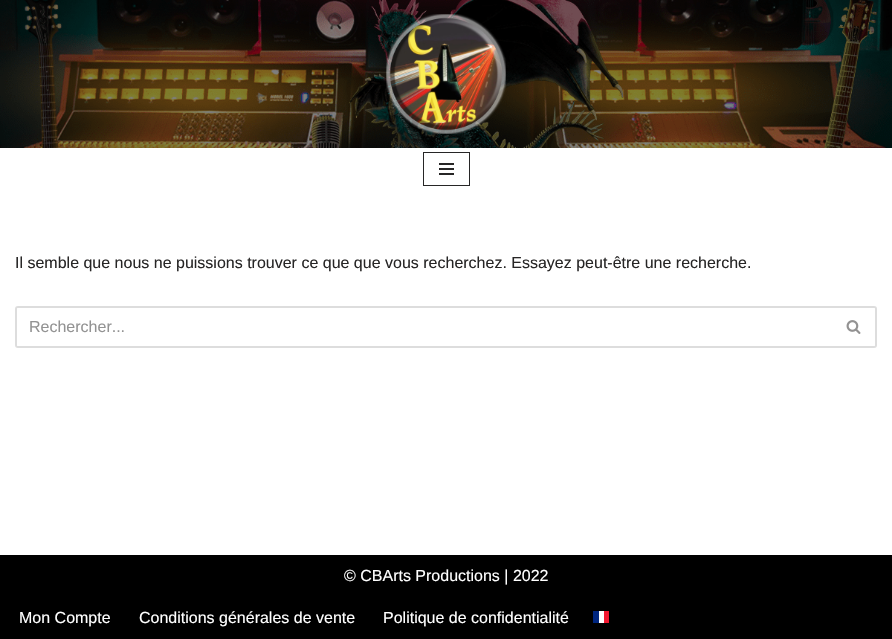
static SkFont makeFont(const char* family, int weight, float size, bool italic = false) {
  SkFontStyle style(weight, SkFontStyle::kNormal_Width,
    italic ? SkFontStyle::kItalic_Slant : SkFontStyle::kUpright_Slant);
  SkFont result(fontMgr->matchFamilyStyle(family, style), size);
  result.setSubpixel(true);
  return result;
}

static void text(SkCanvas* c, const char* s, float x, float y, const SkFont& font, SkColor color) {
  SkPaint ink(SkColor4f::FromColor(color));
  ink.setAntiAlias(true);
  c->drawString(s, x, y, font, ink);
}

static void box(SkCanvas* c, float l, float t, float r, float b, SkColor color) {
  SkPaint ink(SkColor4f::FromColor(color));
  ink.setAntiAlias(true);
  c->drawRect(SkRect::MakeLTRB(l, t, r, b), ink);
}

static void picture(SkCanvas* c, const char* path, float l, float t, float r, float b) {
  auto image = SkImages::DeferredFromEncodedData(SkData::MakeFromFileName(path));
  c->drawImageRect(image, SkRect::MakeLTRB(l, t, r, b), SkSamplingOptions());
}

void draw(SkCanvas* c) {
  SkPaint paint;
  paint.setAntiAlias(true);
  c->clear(0xffffffff);
  picture(c, "img_01.png", 0, 0, 892, 148);
  picture(c, "img_02.png", 386, 14, 506, 134);
  paint.setStyle(SkPaint::kStroke_Style);
  paint.setStrokeWidth(1);
  paint.setColor(0xff272626);
  c->drawRect(SkRect::MakeLTRB(423.5f, 152.5f, 469.5f, 185.5f), paint);
  box(c, 439, 163, 454, 165, 0xff272626);
  box(c, 439, 168, 454, 170, 0xff272626);
  box(c, 439, 173, 454, 175, 0xff272626);
  SkFont face1 = makeFont("Liberation Sans", 400, 16);
  text(c, "Il semble que nous ne puissions trouver ce que que vous recherchez. Essayez peut-être une recherche.", 15, 268, face1, 0xff272626);
  paint.setStyle(SkPaint::kFill_Style);
  paint.setColor(0xffdddddd);
  c->drawPath(SkPathBuilder(SkPathFillType::kEvenOdd).moveTo(18, 306).lineTo(832, 306).lineTo(832, 348).lineTo(18, 348).cubicTo(16, 348, 15, 347, 15, 345).lineTo(15, 309).cubicTo(15, 307, 16, 306, 18, 306).close().moveTo(18, 308).lineTo(832, 308).lineTo(832, 346).lineTo(18, 346).cubicTo(17, 346, 17, 346, 17, 345).lineTo(17, 309).cubicTo(17, 308, 17, 308, 18, 308).close().detach(), paint);
  text(c, "Rechercher...", 29, 332, face1, 0xff939393);
  c->drawPath(SkPathBuilder(SkPathFillType::kEvenOdd).moveTo(832, 306).lineTo(874, 306).cubicTo(876, 306, 877, 307, 877, 309).lineTo(877, 345).cubicTo(877, 347, 876, 348, 874, 348).lineTo(832, 348).close().moveTo(832, 308).lineTo(874, 308).cubicTo(875, 308, 875, 308, 875, 309).lineTo(875, 345).cubicTo(875, 346, 875, 346, 874, 346).lineTo(832, 346).close().detach(), paint);
  picture(c, "img_03.png", 846, 320, 861, 334);
  box(c, 0, 555, 892, 639, 0xff000000);
  text(c, "© CBArts Productions | 2022", 344, 581, face1, 0xffffffff);
  text(c, "Mon Compte", 19, 623, face1, 0xffffffff);
  text(c, "Conditions générales de vente", 139, 623, face1, 0xffffffff);
  text(c, "Politique de confidentialité", 383, 623, face1, 0xffffffff);
  box(c, 599, 611, 604, 623, 0xffffffff);
  box(c, 593, 611, 599, 623, 0xff00267f);
  box(c, 604, 611, 609, 623, 0xfff31830);
}
